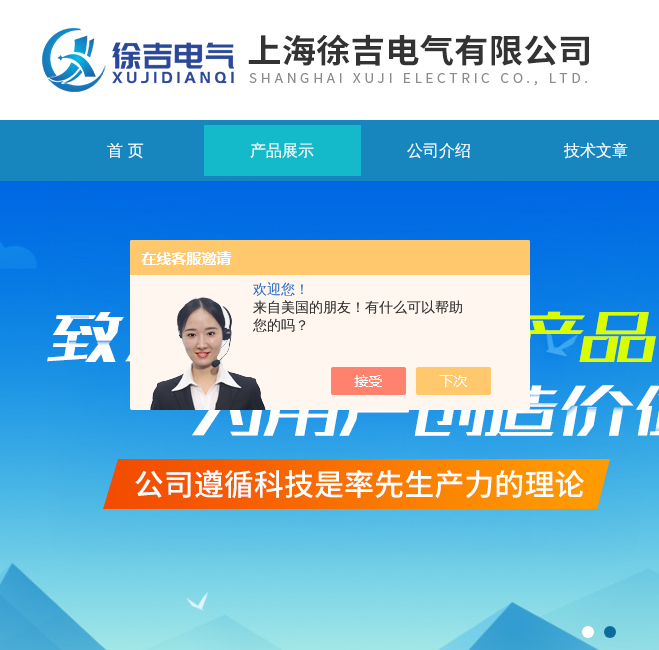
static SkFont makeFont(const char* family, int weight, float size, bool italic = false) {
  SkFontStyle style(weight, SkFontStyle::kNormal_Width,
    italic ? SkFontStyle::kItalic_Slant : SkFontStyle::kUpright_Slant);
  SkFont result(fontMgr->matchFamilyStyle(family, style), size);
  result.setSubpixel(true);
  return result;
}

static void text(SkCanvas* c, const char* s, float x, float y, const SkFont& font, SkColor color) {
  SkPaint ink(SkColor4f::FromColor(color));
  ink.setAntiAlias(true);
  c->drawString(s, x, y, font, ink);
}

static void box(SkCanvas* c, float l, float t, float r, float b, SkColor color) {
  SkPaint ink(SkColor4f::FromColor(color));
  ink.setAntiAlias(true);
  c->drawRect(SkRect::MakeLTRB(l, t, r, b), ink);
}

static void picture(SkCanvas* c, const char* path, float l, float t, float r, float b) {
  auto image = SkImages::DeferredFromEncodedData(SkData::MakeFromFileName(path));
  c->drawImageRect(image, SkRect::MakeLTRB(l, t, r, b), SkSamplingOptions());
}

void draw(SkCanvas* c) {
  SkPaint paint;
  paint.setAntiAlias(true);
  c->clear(0xffffffff);
  picture(c, "img_01.png", 42, 28, 589, 92);
  box(c, 0, 120, 659, 181, 0xff1786bf);
  SkFont face1 = makeFont("WenQuanYi Zen Hei", 500, 16);
  text(c, "首 页", 107, 156, face1, 0xffffffff);
  box(c, 204, 125, 361, 176, 0xff14b9ca);
  text(c, "产品展示", 250, 156, face1, 0xffffffff);
  text(c, "公司介绍", 407, 156, face1, 0xffffffff);
  text(c, "技术文章", 564, 156, face1, 0xffffffff);
  picture(c, "img_02.png", 0, 181, 659, 650);
  paint.setColor(0xffffffff);
  c->drawCircle(588, 632, 6, paint);
  paint.setColor(0xff0c6c9d);
  c->drawCircle(610, 632, 6, paint);
  picture(c, "img_03.png", 130, 240, 530, 410);
  SkFont face2 = makeFont("WenQuanYi Zen Hei", 500, 14);
  text(c, "欢迎您！", 253, 294, face2, 0xff2e6ec6);
  text(c, "来自美国的朋友！有什么可以帮助", 253, 312, face2, 0xff333333);
  text(c, "您的吗？", 253, 330, face2, 0xff333333);
}
